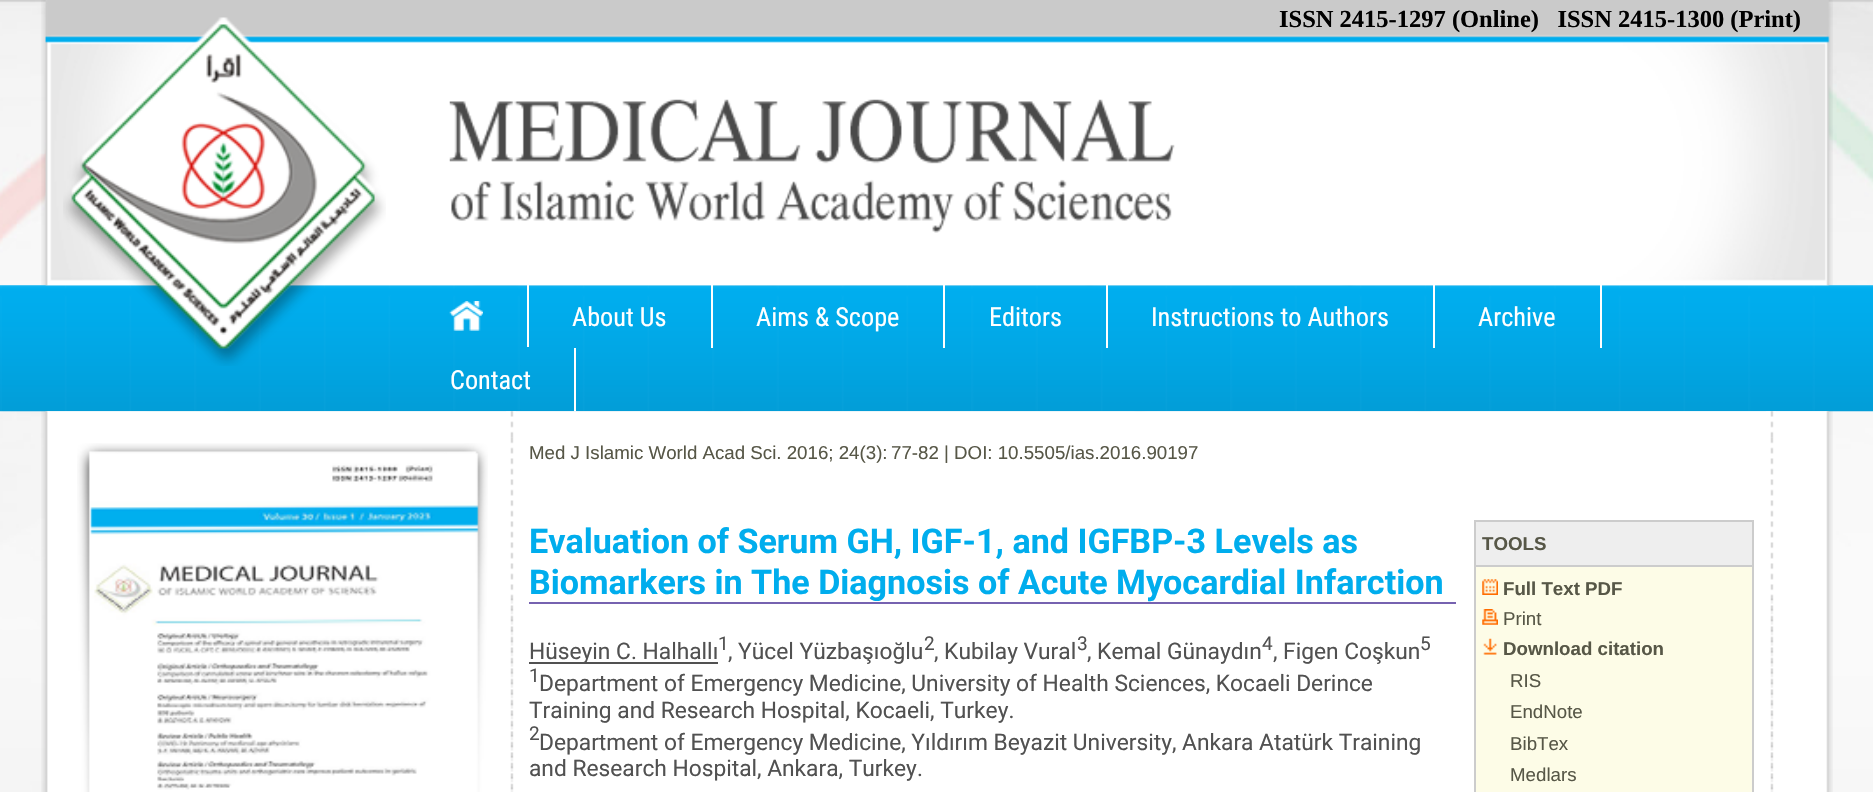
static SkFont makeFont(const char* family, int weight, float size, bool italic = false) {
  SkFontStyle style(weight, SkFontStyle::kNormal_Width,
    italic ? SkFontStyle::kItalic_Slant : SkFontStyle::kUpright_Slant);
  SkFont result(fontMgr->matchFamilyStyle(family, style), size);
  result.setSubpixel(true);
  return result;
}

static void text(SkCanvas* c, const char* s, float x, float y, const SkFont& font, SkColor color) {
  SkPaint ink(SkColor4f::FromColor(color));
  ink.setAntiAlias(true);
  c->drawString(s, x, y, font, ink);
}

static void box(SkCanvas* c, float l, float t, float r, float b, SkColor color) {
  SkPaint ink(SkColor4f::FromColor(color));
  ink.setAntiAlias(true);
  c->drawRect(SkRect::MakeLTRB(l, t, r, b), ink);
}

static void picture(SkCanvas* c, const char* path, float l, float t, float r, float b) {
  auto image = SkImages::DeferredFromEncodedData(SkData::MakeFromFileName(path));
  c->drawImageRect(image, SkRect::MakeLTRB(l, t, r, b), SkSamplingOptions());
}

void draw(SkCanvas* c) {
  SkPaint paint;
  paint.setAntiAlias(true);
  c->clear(0xffffffff);
  picture(c, "img_01.png", 0, 0, 1873, 792);
  picture(c, "img_05.png", 0, 285, 1873, 412);
  picture(c, "img_02.png", 41, 0, 1833, 286);
  picture(c, "img_03.png", 63, 17, 386, 366);
  picture(c, "img_04.png", 449, 99, 1175, 233);
  SkFont face1 = makeFont("Liberation Serif", 700, 24.5f);
  text(c, "ISSN 2415-1297 (Online)   ISSN 2415-1300 (Print)", 1279, 27, face1, 0xff000000);
  box(c, 527, 285, 529, 347, 0xffffffff);
  picture(c, "img_06.png", 449, 301, 483, 331);
  box(c, 711, 285, 713, 348, 0xffffffff);
  SkFont face2 = makeFont("Roboto Condensed", 400, 26.25f);
  text(c, "About Us", 572, 326, face2, 0xffffffff);
  box(c, 943, 285, 945, 348, 0xffffffff);
  text(c, "Aims & Scope", 756, 326, face2, 0xffffffff);
  box(c, 1106, 285, 1108, 348, 0xffffffff);
  text(c, "Editors", 989, 326, face2, 0xffffffff);
  box(c, 1433, 285, 1435, 348, 0xffffffff);
  text(c, "Instructions to Authors", 1151, 326, face2, 0xffffffff);
  box(c, 1600, 285, 1602, 348, 0xffffffff);
  text(c, "Archive", 1478, 326, face2, 0xffffffff);
  box(c, 574, 348, 576, 411, 0xffffffff);
  text(c, "Contact", 450, 389, face2, 0xffffffff);
  picture(c, "img_07.png", 41, 411, 1833, 792);
  picture(c, "img_08.png", 506, 411, 516, 438);
  picture(c, "img_09.png", 1766, 411, 1776, 438);
  picture(c, "img_10.png", 77, 443, 488, 792);
  picture(c, "img_11.png", 510, 437, 514, 792);
  SkFont face3 = makeFont("Liberation Sans", 400, 18.7f);
  text(c, "Med J Islamic World Acad Sci. 2016; 24(3):", 529, 459, face3, 0xff575747);
  text(c, "77-82 | DOI: 10.5505/ias.2016.90197", 891, 459, face3, 0xff575747);
  box(c, 529, 602, 1456, 604, 0xff7662b0);
  SkFont face4 = makeFont("Roboto", 700, 34.1f);
  text(c, "Evaluation of Serum GH, IGF-1, and IGFBP-3 Levels as", 529, 553, face4, 0xff00aded);
  text(c, "Biomarkers in The Diagnosis of Acute Myocardial Infarction", 529, 594, face4, 0xff00aded);
  box(c, 529, 662, 718, 664, 0xff515151);
  SkFont face5 = makeFont("Roboto", 400, 22.75f);
  text(c, "Hüseyin C. Halhallı", 529, 659, face5, 0xff515151);
  SkFont face6 = makeFont("Roboto", 400, 19);
  text(c, "1", 718, 650, face6, 0xff515151);
  text(c, ", Yücel Yüzbaşıoğlu", 728, 659, face5, 0xff515151);
  text(c, "2", 924, 650, face6, 0xff515151);
  text(c, ", Kubilay Vural", 934, 659, face5, 0xff515151);
  text(c, "3", 1077, 650, face6, 0xff515151);
  text(c, ", Kemal Günaydın", 1087, 659, face5, 0xff515151);
  text(c, "4", 1262, 650, face6, 0xff515151);
  text(c, ", Figen Coşkun", 1273, 659, face5, 0xff515151);
  text(c, "5", 1420, 650, face6, 0xff515151);
  text(c, "1", 529, 682, face6, 0xff515151);
  text(c, "Department of Emergency Medicine, University of Health Sciences, Kocaeli Derince", 539, 691, face5, 0xff515151);
  text(c, "Training and Research Hospital, Kocaeli, Turkey.", 529, 718, face5, 0xff515151);
  text(c, "2", 529, 740, face6, 0xff515151);
  text(c, "Department of Emergency Medicine, Yıldırım Beyazit University, Ankara Atatürk Training", 539, 750, face5, 0xff515151);
  text(c, "and Research Hospital, Ankara, Turkey.", 529, 776, face5, 0xff515151);
  box(c, 1474, 520, 1754, 522, 0xffcccccc);
  box(c, 1752, 520, 1754, 792, 0xffcccccc);
  box(c, 1474, 520, 1476, 792, 0xffcccccc);
  box(c, 1476, 522, 1752, 565, 0xffeeeeee);
  SkFont face7 = makeFont("Liberation Sans", 700, 18.7f);
  text(c, "TOOLS", 1482, 550, face7, 0xff575747);
  box(c, 1476, 567, 1752, 792, 0xfffdfce7);
  box(c, 1474, 565, 1754, 567, 0xffcccccc);
  picture(c, "img_12.png", 1482, 579, 1498, 595);
  text(c, "Full Text PDF", 1503, 595, face7, 0xff575747);
  picture(c, "img_13.png", 1482, 609, 1498, 625);
  text(c, "Print", 1503, 625, face3, 0xff575747);
  picture(c, "img_14.png", 1483, 638, 1497, 655);
  text(c, "Download citation", 1503, 655, face7, 0xff575747);
  text(c, "RIS", 1510, 687, face3, 0xff575747);
  text(c, "EndNote", 1510, 718, face3, 0xff575747);
  text(c, "BibTex", 1510, 750, face3, 0xff575747);
  text(c, "Medlars", 1510, 781, face3, 0xff575747);
  picture(c, "img_11.png", 1770, 437, 1774, 792);
}
